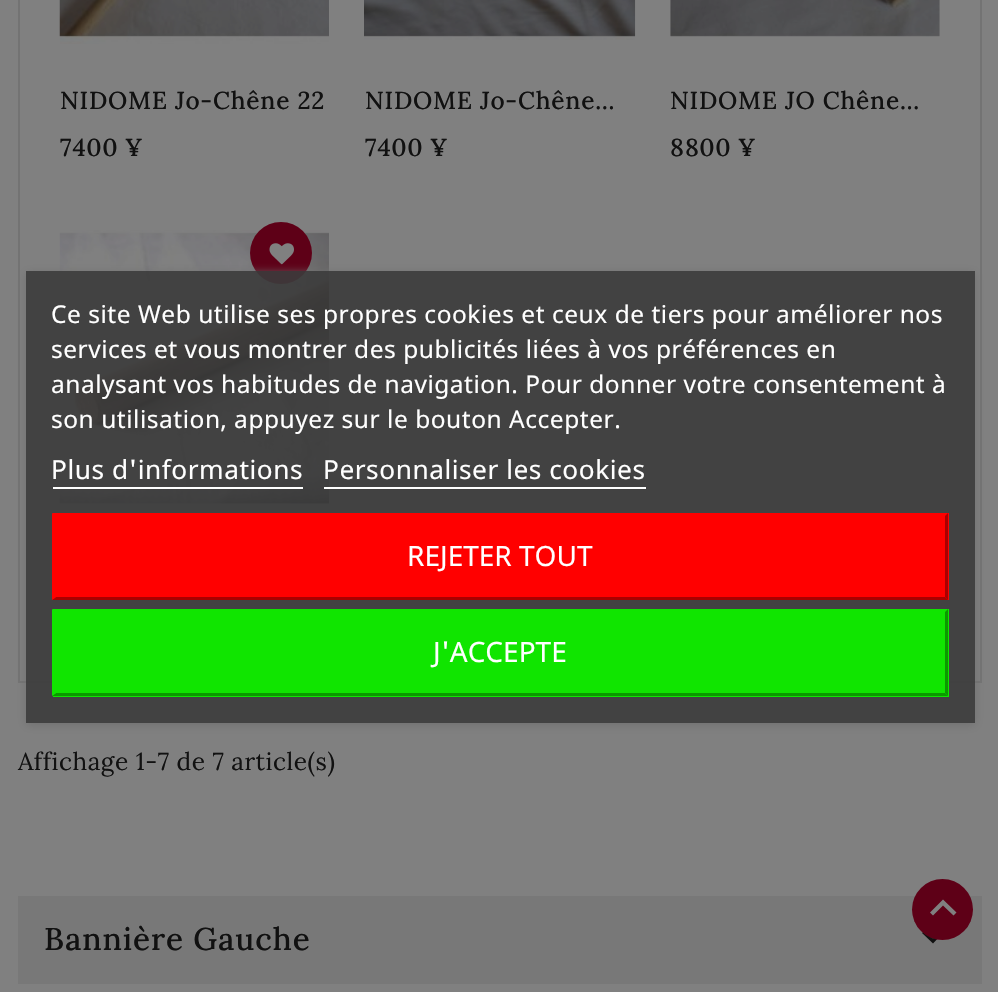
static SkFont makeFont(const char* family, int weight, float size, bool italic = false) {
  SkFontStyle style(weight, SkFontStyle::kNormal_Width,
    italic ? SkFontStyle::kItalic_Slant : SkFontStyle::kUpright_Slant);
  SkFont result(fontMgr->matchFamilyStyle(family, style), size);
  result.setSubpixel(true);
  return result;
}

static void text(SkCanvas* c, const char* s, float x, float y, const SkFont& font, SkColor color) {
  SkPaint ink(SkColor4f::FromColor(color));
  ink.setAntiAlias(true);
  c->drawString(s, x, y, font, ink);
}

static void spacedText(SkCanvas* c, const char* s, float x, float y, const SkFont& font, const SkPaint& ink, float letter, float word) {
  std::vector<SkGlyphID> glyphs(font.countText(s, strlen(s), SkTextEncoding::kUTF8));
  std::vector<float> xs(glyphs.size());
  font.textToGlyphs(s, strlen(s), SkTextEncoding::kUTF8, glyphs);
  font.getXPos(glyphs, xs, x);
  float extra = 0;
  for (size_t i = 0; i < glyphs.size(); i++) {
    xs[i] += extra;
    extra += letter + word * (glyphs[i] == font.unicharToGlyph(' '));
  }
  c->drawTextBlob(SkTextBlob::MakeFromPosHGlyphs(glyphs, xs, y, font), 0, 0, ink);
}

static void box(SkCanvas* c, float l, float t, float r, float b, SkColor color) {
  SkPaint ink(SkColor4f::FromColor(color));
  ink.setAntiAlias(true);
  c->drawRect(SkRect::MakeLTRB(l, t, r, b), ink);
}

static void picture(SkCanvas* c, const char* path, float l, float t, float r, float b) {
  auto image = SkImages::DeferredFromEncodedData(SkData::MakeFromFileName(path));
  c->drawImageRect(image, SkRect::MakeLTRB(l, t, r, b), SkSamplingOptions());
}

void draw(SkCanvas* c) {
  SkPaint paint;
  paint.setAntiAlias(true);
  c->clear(0xff808080);
  paint.setStyle(SkPaint::kStroke_Style);
  paint.setStrokeWidth(2);
  paint.setColor(0xff737373);
  c->drawRect(SkRect::MakeLTRB(19, -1, 981, 682), paint);
  picture(c, "img_01.png", 59, 0, 329, 44);
  SkFont face1 = makeFont("Lora", 500, 24.5f);
  paint.setStyle(SkPaint::kFill_Style);
  paint.setColor(0xff111111);
  spacedText(c, "NIDOME Jo-Chêne 22", 60, 109, face1, paint, 0.75f, 0);
  spacedText(c, "7 400 ¥", 60, 156, face1, paint, 0.53f, 0);
  picture(c, "img_02.png", 364, 0, 636, 40);
  spacedText(c, "NIDOME Jo-Chêne…", 365, 109, face1, paint, 0.75f, 0);
  spacedText(c, "7 400 ¥", 365, 156, face1, paint, 0.53f, 0);
  picture(c, "img_03.png", 670, 0, 940, 37);
  spacedText(c, "NIDOME JO Chêne…", 670, 109, face1, paint, 0.75f, 0);
  spacedText(c, "8 800 ¥", 670, 156, face1, paint, 0.53f, 0);
  picture(c, "img_05.png", 59, 230, 329, 504);
  paint.setColor(0xff5e0017);
  c->drawCircle(281, 253, 31, paint);
  picture(c, "img_04.png", 269, 243, 294, 265);
  SkFont face2 = makeFont("Lora", 400, 24.5f);
  paint.setColor(0xff111111);
  spacedText(c, "Affichage 1-7 de 7 article(s)", 18, 770, face2, paint, 0.53f, 0);
  box(c, 18, 896, 982, 984, 0xff787878);
  SkFont face3 = makeFont("Lora", 500, 31.5f);
  spacedText(c, "Bannière Gauche", 44, 950, face3, paint, 0.9f, 0);
  c->drawPath(SkPathBuilder().moveTo(924.5f, 930.5f).lineTo(933, 938.5f).lineTo(941, 930.5f).lineTo(943, 933).lineTo(933, 943.5f).lineTo(922, 933).close().detach(), paint);
  c->save();
  c->clipPath(SkPathBuilder(SkPathFillType::kEvenOdd).moveTo(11, 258).lineTo(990, 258).lineTo(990, 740).lineTo(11, 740).close().moveTo(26, 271).lineTo(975, 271).lineTo(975, 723).lineTo(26, 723).close().detach(), true);
  paint.setColor(0xff707070);
  paint.setMaskFilter(SkMaskFilter::MakeBlur(kNormal_SkBlurStyle, 4.5f));
  c->drawRect(SkRect::MakeLTRB(26, 273, 975, 725), paint);
  paint.setMaskFilter(nullptr);
  c->restore();
  box(c, 26, 271, 975, 723, 0xe63b3b3b);
  SkFont face4 = makeFont("Noto Sans", 400, 24.5f);
  paint.setColor(0xffffffff);
  spacedText(c, "Ce site Web utilise ses propres cookies et ceux de tiers pour améliorer nos", 51, 323, face4, paint, 0.53f, 0);
  spacedText(c, "services et vous montrer des publicités liées à vos préférences en", 51, 358, face4, paint, 0.53f, 0);
  spacedText(c, "analysant vos habitudes de navigation. Pour donner votre consentement à", 51, 393, face4, paint, 0.53f, 0);
  spacedText(c, "son utilisation, appuyez sur le bouton Accepter.", 51, 428, face4, paint, 0.53f, 0);
  SkFont face5 = makeFont("Noto Sans", 400, 26.25f);
  spacedText(c, "Plus d'informations", 51, 479, face5, paint, 0.53f, 0);
  box(c, 53, 487, 303, 489, 0xffffffff);
  spacedText(c, "Personnaliser les cookies", 323, 479, face5, paint, 0.53f, 0);
  box(c, 324, 487, 646, 489, 0xffffffff);
  box(c, 53, 513, 949, 600, 0xffff0000);
  paint.setColor(0xffff0000);
  c->drawPath(SkPathBuilder().moveTo(52, 513).lineTo(948, 513).lineTo(945, 516).lineTo(56, 516).close().detach(), paint);
  paint.setColor(0xffaa0000);
  c->drawPath(SkPathBuilder().moveTo(948, 513).lineTo(948, 600).lineTo(945, 597).lineTo(945, 516).close().detach(), paint);
  c->drawPath(SkPathBuilder().moveTo(948, 600).lineTo(52, 600).lineTo(56, 597).lineTo(945, 597).close().detach(), paint);
  paint.setColor(0xffff0000);
  c->drawPath(SkPathBuilder().moveTo(52, 600).lineTo(52, 513).lineTo(56, 516).lineTo(56, 597).close().detach(), paint);
  SkFont face6 = makeFont("Noto Sans", 400, 28);
  text(c, "REJETER TOUT", 407, 566, face6, 0xffffffff);
  box(c, 53, 609, 949, 697, 0xff10e500);
  paint.setColor(0xff10e500);
  c->drawPath(SkPathBuilder().moveTo(52, 609).lineTo(948, 609).lineTo(945, 612).lineTo(56, 612).close().detach(), paint);
  paint.setColor(0xff0b9900);
  c->drawPath(SkPathBuilder().moveTo(948, 609).lineTo(948, 696).lineTo(945, 693).lineTo(945, 612).close().detach(), paint);
  c->drawPath(SkPathBuilder().moveTo(948, 696).lineTo(52, 696).lineTo(56, 693).lineTo(945, 693).close().detach(), paint);
  paint.setColor(0xff10e500);
  c->drawPath(SkPathBuilder().moveTo(52, 696).lineTo(52, 609).lineTo(56, 612).lineTo(56, 693).close().detach(), paint);
  text(c, "J'ACCEPTE", 433, 662, face6, 0xffffffff);
  paint.setColor(0xff5e0017);
  c->drawCircle(942.5f, 909.5f, 30.5f, paint);
  paint.setColor(0xff808080);
  c->drawPath(SkPathBuilder().moveTo(943, 899.5f).lineTo(956.5f, 912.5f).lineTo(953.5f, 915.5f).lineTo(943, 905.5f).lineTo(933, 915.5f).lineTo(930, 912.5f).close().detach(), paint);
}
